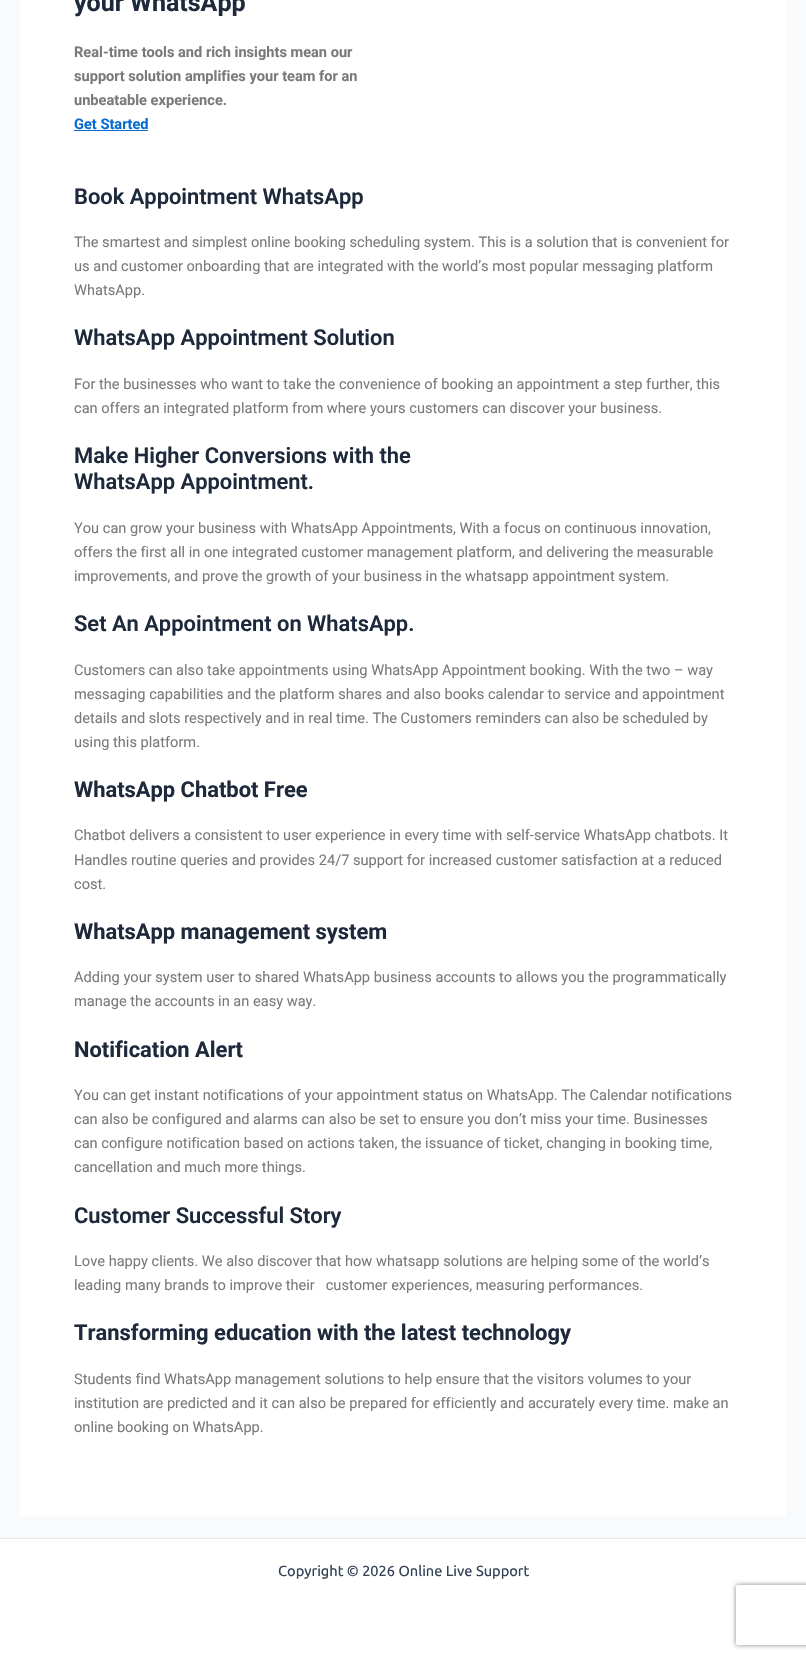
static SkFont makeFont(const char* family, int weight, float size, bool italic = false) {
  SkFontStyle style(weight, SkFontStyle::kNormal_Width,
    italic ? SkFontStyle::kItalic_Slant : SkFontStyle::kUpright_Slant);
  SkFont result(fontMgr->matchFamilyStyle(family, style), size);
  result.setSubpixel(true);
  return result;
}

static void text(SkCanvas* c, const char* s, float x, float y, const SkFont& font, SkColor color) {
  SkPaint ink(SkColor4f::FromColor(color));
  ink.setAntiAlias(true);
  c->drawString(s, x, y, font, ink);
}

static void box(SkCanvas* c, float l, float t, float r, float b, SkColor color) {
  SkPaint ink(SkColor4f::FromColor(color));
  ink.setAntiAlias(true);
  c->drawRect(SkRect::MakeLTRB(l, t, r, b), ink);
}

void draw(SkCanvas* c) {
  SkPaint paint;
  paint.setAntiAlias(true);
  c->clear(0xfff9fafb);
  box(c, 20, 0, 786, 1516, 0xffffffff);
  SkFont face1 = makeFont("Roboto", 700, 25);
  text(c, "your WhatsApp", 74, 11, face1, 0xff1e293b);
  SkFont face2 = makeFont("Roboto", 700, 14.6f);
  text(c, "Real-time tools and rich insights mean our", 74, 57, face2, 0xff7a7a7a);
  text(c, "support solution amplifies your team for an", 74, 81, face2, 0xff7a7a7a);
  text(c, "unbeatable experience.", 74, 105, face2, 0xff7a7a7a);
  text(c, "Get Started", 74, 129, face2, 0xff046bd2);
  box(c, 74, 130, 148, 131, 0xff046bd2);
  SkFont face3 = makeFont("Roboto", 600, 21.9f);
  text(c, "Book Appointment WhatsApp", 74, 204, face3, 0xff1e293b);
  SkFont face4 = makeFont("Roboto", 400, 14.6f);
  text(c, "The smartest and simplest online booking scheduling system. This is a solution that is convenient for", 74, 247, face4, 0xff7a7a7a);
  text(c, "us and customer onboarding that are integrated with the world’s most popular messaging platform", 74, 271, face4, 0xff7a7a7a);
  text(c, "WhatsApp.", 74, 295, face4, 0xff7a7a7a);
  text(c, "WhatsApp Appointment Solution", 74, 345, face3, 0xff1e293b);
  text(c, "For the businesses who want to take the convenience of booking an appointment a step further, this", 74, 389, face4, 0xff7a7a7a);
  text(c, "can offers an integrated platform from where yours customers can discover your business.", 74, 413, face4, 0xff7a7a7a);
  text(c, "Make Higher Conversions with the", 74, 463, face3, 0xff1e293b);
  text(c, "WhatsApp Appointment.", 74, 489, face3, 0xff1e293b);
  text(c, "You can grow your business with WhatsApp Appointments, With a focus on continuous innovation,", 74, 533, face4, 0xff7a7a7a);
  text(c, "offers the first all in one integrated customer management platform, and delivering the measurable", 74, 557, face4, 0xff7a7a7a);
  text(c, "improvements, and prove the growth of your business in the whatsapp appointment system.", 74, 581, face4, 0xff7a7a7a);
  text(c, "Set An Appointment on WhatsApp.", 74, 631, face3, 0xff1e293b);
  text(c, "Customers can also take appointments using WhatsApp Appointment booking. With the two – way", 74, 675, face4, 0xff7a7a7a);
  text(c, "messaging capabilities and the platform shares and also books calendar to service and appointment", 74, 699, face4, 0xff7a7a7a);
  text(c, "details and slots respectively and in real time. The Customers reminders can also be scheduled by", 74, 723, face4, 0xff7a7a7a);
  text(c, "using this platform.", 74, 747, face4, 0xff7a7a7a);
  SkFont face5 = makeFont("Roboto", 700, 21.9f);
  text(c, "WhatsApp Chatbot Free", 74, 797, face5, 0xff1e293b);
  text(c, "Chatbot delivers a consistent to user experience in every time with self-service WhatsApp chatbots. It", 74, 840, face4, 0xff7a7a7a);
  text(c, "Handles routine queries and provides 24/7 support for increased customer satisfaction at a reduced", 74, 865, face4, 0xff7a7a7a);
  text(c, "cost.", 74, 889, face4, 0xff7a7a7a);
  text(c, "WhatsApp management system", 74, 939, face5, 0xff1e293b);
  text(c, "Adding your system user to shared WhatsApp business accounts to allows you the programmatically", 74, 982, face4, 0xff7a7a7a);
  text(c, "manage the accounts in an easy way.", 74, 1006, face4, 0xff7a7a7a);
  text(c, "Notification Alert", 74, 1057, face5, 0xff1e293b);
  text(c, "You can get instant notifications of your appointment status on WhatsApp. The Calendar notifications", 74, 1100, face4, 0xff7a7a7a);
  text(c, "can also be configured and alarms can also be set to ensure you don’t miss your time. Businesses", 74, 1124, face4, 0xff7a7a7a);
  text(c, "can configure notification based on actions taken, the issuance of ticket, changing in booking time,", 74, 1148, face4, 0xff7a7a7a);
  text(c, "cancellation and much more things.", 74, 1172, face4, 0xff7a7a7a);
  text(c, "Customer Successful Story", 74, 1223, face3, 0xff1e293b);
  text(c, "Love happy clients. We also discover that how whatsapp solutions are helping some of the world’s", 74, 1266, face4, 0xff7a7a7a);
  text(c, "leading many brands to improve their   customer experiences, measuring performances.", 74, 1290, face4, 0xff7a7a7a);
  text(c, "Transforming education with the latest technology", 74, 1340, face5, 0xff1e293b);
  text(c, "Students find WhatsApp management solutions to help ensure that the visitors volumes to your", 74, 1384, face4, 0xff7a7a7a);
  text(c, "institution are predicted and it can also be prepared for efficiently and accurately every time. make an", 74, 1408, face4, 0xff7a7a7a);
  text(c, "online booking on WhatsApp.", 74, 1432, face4, 0xff7a7a7a);
  box(c, 0, 1539, 806, 1659, 0xffffffff);
  box(c, 0, 1538, 806, 1539, 0xffe2e8f0);
  SkFont face6 = makeFont("Ubuntu", 400, 14.6f);
  text(c, "Copyright © 2026 Online Live Support", 278, 1576, face6, 0xff334155);
  c->save();
  c->clipPath(SkPathBuilder(SkPathFillType::kEvenOdd).moveTo(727, 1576).lineTo(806, 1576).lineTo(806, 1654).lineTo(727, 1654).close().moveTo(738, 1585).lineTo(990, 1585).cubicTo(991, 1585, 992, 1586, 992, 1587).lineTo(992, 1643).cubicTo(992, 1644, 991, 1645, 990, 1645).lineTo(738, 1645).cubicTo(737, 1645, 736, 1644, 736, 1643).lineTo(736, 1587).cubicTo(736, 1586, 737, 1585, 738, 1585).close().detach(), true);
  paint.setColor(0xff808080);
  paint.setMaskFilter(SkMaskFilter::MakeBlur(kNormal_SkBlurStyle, 2.5f));
  c->drawRoundRect(SkRect::MakeLTRB(736, 1585, 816, 1645), 2, 2, paint);
  paint.setMaskFilter(nullptr);
  c->restore();
}
